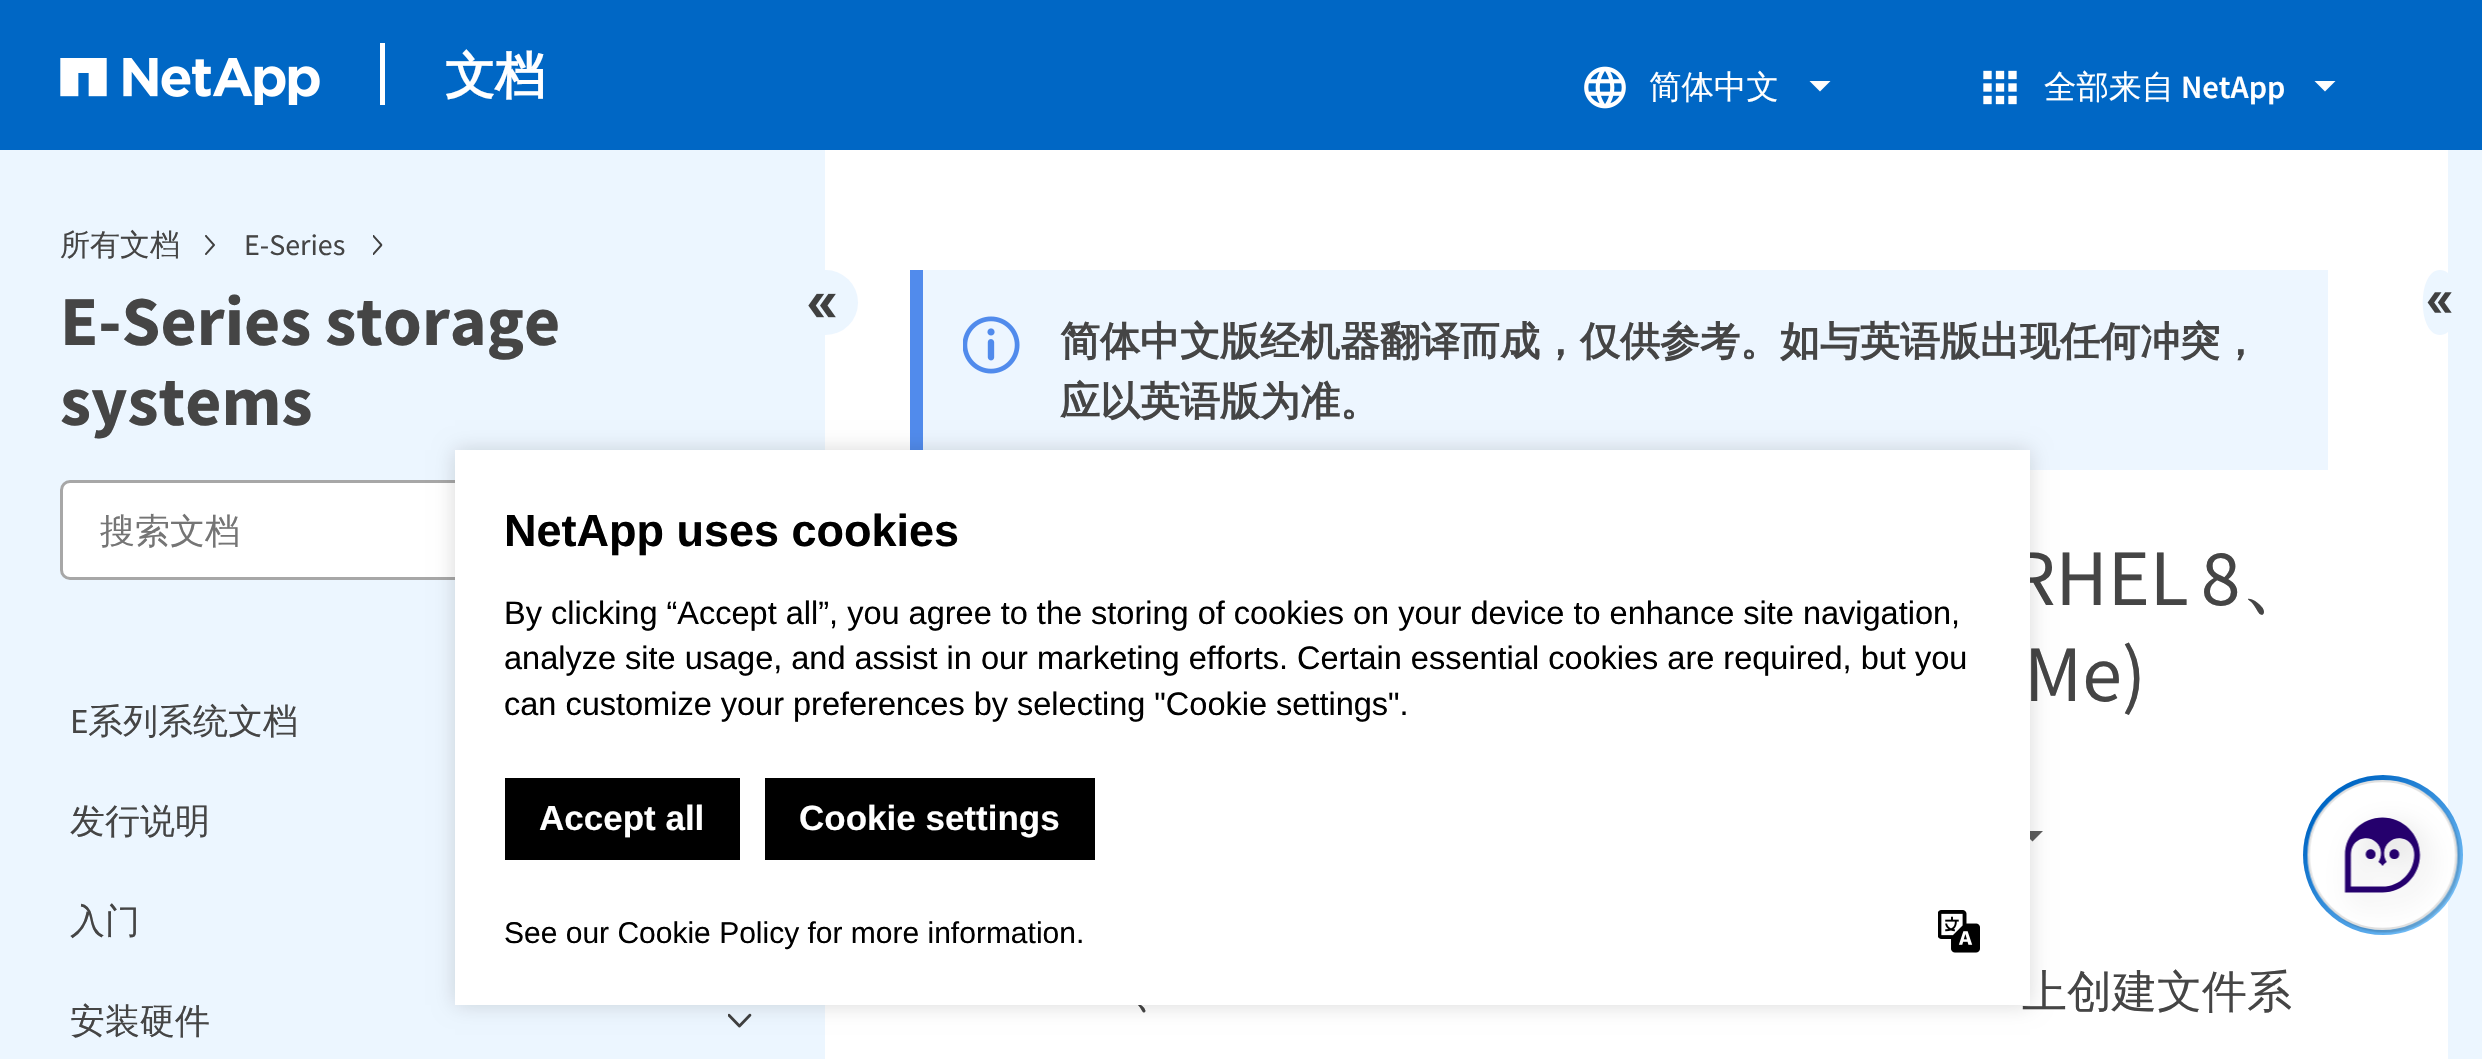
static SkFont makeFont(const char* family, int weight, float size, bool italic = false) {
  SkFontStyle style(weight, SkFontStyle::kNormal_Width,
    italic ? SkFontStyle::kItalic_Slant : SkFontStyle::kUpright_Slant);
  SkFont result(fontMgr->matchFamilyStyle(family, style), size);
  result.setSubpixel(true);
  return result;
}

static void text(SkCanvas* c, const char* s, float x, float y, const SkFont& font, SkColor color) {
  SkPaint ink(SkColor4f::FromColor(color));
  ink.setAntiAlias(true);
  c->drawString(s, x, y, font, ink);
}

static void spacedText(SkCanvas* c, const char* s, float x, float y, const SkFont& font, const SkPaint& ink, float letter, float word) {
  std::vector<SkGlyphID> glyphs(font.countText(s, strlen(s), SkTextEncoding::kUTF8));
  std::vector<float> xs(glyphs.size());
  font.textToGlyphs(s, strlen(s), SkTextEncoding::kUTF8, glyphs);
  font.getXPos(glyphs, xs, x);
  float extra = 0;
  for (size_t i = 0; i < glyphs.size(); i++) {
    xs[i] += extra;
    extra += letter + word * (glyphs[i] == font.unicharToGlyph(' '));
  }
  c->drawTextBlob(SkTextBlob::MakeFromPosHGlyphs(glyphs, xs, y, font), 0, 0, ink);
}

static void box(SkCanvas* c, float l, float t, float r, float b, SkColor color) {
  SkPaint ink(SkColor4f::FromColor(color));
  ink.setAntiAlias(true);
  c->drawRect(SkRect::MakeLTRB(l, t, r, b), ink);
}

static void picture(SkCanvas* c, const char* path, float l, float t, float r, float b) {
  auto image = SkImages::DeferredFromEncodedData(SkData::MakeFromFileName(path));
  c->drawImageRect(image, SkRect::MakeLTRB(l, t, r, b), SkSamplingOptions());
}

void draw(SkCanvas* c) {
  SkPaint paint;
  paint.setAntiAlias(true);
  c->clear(0xffffffff);
  box(c, 0, 0, 2482, 150, 0xff0067c5);
  picture(c, "img_01.png", 60, 58, 320, 105);
  box(c, 380, 43, 385, 105, 0xffffffff);
  SkFont face1 = makeFont("WenQuanYi Zen Hei", 700, 50);
  text(c, "文档", 445, 93, face1, 0xffffffff);
  picture(c, "img_02.png", 1584, 66, 1626, 109);
  SkFont face2 = makeFont("WenQuanYi Zen Hei", 500, 32.5f);
  text(c, "简体中文", 1649, 98, face2, 0xffffffff);
  paint.setColor(0xfffdfdfd);
  c->drawPath(SkPathBuilder().moveTo(1820, 91.5f).lineTo(1809.5f, 81).lineTo(1830.5f, 81).close().detach(), paint);
  picture(c, "img_03.png", 1983, 70, 2017, 105);
  text(c, "全部来自", 2044, 98, face2, 0xffffffff);
  SkFont face3 = makeFont("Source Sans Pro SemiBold", 600, 32.5f);
  text(c, "NetApp", 2181, 98, face3, 0xffffffff);
  c->drawPath(SkPathBuilder().moveTo(2325, 91.5f).lineTo(2314.5f, 81).lineTo(2335.5f, 81).close().detach(), paint);
  box(c, 0, 150, 825, 1059, 0xffecf6ff);
  SkFont face4 = makeFont("WenQuanYi Zen Hei", 500, 30);
  text(c, "所有文档", 60, 255, face4, 0xff454545);
  picture(c, "img_04.png", 205, 235, 215, 255);
  SkFont face5 = makeFont("Source Sans Pro", 400, 30);
  text(c, "E-Series", 244, 255, face5, 0xff454545);
  picture(c, "img_05.png", 373, 235, 383, 255);
  SkFont face6 = makeFont("Source Sans Pro", 700, 70);
  text(c, "E-Series storage", 60, 345, face6, 0xff454545);
  text(c, "systems", 60, 425, face6, 0xff454545);
  paint.setColor(0xffecf6ff);
  c->drawCircle(825.5f, 302.5f, 32.5f, paint);
  picture(c, "img_06.png", 808, 293, 836, 318);
  paint.setColor(0xffffffff);
  c->drawRoundRect(SkRect::MakeLTRB(61.5f, 481.5f, 763.5f, 578.5f), 8.5f, 8.5f, paint);
  paint.setStyle(SkPaint::kStroke_Style);
  paint.setStrokeWidth(3);
  paint.setColor(0xffa7a7a7);
  c->drawRoundRect(SkRect::MakeLTRB(61.5f, 481.5f, 763.5f, 578.5f), 8.5f, 8.5f, paint);
  SkFont face7 = makeFont("WenQuanYi Zen Hei", 500, 35);
  text(c, "搜索文档", 100, 543, face7, 0xff757575);
  SkFont face8 = makeFont("Source Sans Pro", 400, 35);
  text(c, "E", 70, 733, face8, 0xff454545);
  text(c, "系列系统文档", 88, 733, face7, 0xff454545);
  text(c, "发行说明", 70, 833, face7, 0xff454545);
  text(c, "入门", 70, 933, face7, 0xff454545);
  text(c, "安装硬件", 70, 1033, face7, 0xff454545);
  picture(c, "img_07.png", 728, 1013, 752, 1028);
  box(c, 923, 270, 2328, 470, 0xffedf6ff);
  box(c, 910, 270, 923, 450, 0xff518bec);
  picture(c, "img_08.png", 963, 316, 1020, 374);
  SkFont face9 = makeFont("WenQuanYi Zen Hei", 700, 40);
  text(c, "简体中文版经机器翻译而成，仅供参考。如与英语版出现任何冲突，", 1060, 355, face9, 0xff454545);
  text(c, "应以英语版为准。", 1060, 415, face9, 0xff454545);
  SkFont face10 = makeFont("Source Sans Pro", 400, 80);
  paint.setStyle(SkPaint::kFill_Style);
  paint.setColor(0xff454545);
  spacedText(c, "RHEL 8", 2010, 605, face10, paint, 0, -4);
  SkFont face11 = makeFont("WenQuanYi Zen Hei", 500, 80);
  text(c, "、", 2240, 605, face11, 0xff454545);
  text(c, "Me)", 2024, 701, face10, 0xff454545);
  paint.setColor(0xff5e5e5e);
  c->drawPath(SkPathBuilder().moveTo(2032.5f, 841.5f).lineTo(2022, 831).lineTo(2043, 831).close().detach(), paint);
  SkFont face12 = makeFont("WenQuanYi Zen Hei", 500, 45);
  text(c, "、", 1132, 1007, face12, 0xff454545);
  text(c, "上创建文件系", 2022, 1007, face12, 0xff454545);
  box(c, 2448, 150, 2482, 1059, 0xffecf6ff);
  paint.setColor(0xffecf6ff);
  c->drawPath(SkPathBuilder().moveTo(2440, 335).cubicTo(2417, 335, 2417, 270, 2440, 270).cubicTo(2463, 270, 2463, 335, 2440, 335).close().detach(), paint);
  picture(c, "img_09.png", 2427, 292, 2452, 313);
  {
    const SkColor colors[] = {0xff0067c5, 0xff7ac3fa};
    const float stops[] = {0.18f, 0.89f};
    const SkPoint ends[] = {{2303, 775}, {2463, 935}};
    paint.setShader(SkGradientShader::MakeLinear(ends, colors, stops, 2, SkTileMode::kClamp));
    paint.setAlpha(255);
  }
  c->drawCircle(2383, 855, 80, paint);
  picture(c, "img_10.png", 2307, 780, 2461, 933);
  paint.setShader(nullptr);
  paint.setColor(0x26000000);
  paint.setMaskFilter(SkMaskFilter::MakeBlur(kNormal_SkBlurStyle, 10));
  c->drawRect(SkRect::MakeLTRB(455, 450, 2030, 1005), paint);
  paint.setMaskFilter(nullptr);
  box(c, 455, 450, 2030, 1005, 0xffffffff);
  SkFont face13 = makeFont("Liberation Sans", 700, 45);
  text(c, "NetApp uses cookies", 504, 546, face13, 0xff000000);
  SkFont face14 = makeFont("Liberation Sans", 400, 32.5f);
  text(c, "By clicking “Accept all”, you agree to the storing of cookies on your device to enhance site navigation,", 504, 624, face14, 0xff000000);
  text(c, "analyze site usage, and assist in our marketing efforts. Certain essential cookies are required, but you", 504, 669, face14, 0xff000000);
  text(c, "can customize your preferences by selecting \"Cookie settings\".", 504, 715, face14, 0xff000000);
  box(c, 505, 778, 740, 860, 0xff000000);
  SkFont face15 = makeFont("Liberation Sans", 700, 35);
  text(c, "Accept all", 539, 830, face15, 0xffffffff);
  box(c, 765, 778, 1095, 860, 0xff000000);
  text(c, "Cookie settings", 799, 830, face15, 0xffffffff);
  SkFont face16 = makeFont("Liberation Sans", 400, 30);
  text(c, "See our Cookie Policy for more information.", 504, 943, face16, 0xff000000);
  picture(c, "img_11.png", 1938, 910, 1980, 953);
}
